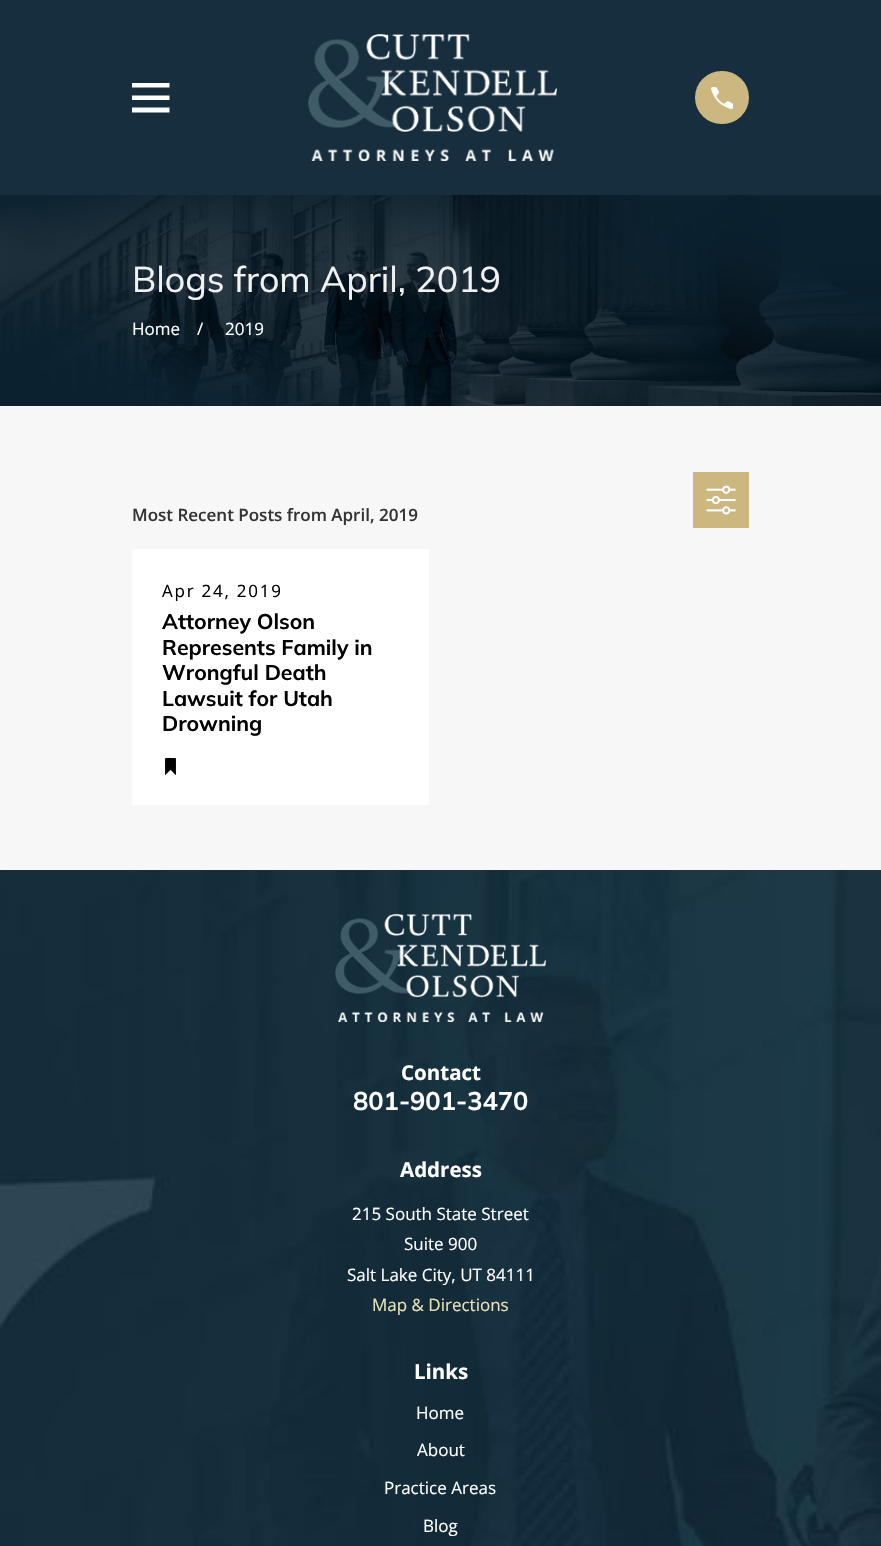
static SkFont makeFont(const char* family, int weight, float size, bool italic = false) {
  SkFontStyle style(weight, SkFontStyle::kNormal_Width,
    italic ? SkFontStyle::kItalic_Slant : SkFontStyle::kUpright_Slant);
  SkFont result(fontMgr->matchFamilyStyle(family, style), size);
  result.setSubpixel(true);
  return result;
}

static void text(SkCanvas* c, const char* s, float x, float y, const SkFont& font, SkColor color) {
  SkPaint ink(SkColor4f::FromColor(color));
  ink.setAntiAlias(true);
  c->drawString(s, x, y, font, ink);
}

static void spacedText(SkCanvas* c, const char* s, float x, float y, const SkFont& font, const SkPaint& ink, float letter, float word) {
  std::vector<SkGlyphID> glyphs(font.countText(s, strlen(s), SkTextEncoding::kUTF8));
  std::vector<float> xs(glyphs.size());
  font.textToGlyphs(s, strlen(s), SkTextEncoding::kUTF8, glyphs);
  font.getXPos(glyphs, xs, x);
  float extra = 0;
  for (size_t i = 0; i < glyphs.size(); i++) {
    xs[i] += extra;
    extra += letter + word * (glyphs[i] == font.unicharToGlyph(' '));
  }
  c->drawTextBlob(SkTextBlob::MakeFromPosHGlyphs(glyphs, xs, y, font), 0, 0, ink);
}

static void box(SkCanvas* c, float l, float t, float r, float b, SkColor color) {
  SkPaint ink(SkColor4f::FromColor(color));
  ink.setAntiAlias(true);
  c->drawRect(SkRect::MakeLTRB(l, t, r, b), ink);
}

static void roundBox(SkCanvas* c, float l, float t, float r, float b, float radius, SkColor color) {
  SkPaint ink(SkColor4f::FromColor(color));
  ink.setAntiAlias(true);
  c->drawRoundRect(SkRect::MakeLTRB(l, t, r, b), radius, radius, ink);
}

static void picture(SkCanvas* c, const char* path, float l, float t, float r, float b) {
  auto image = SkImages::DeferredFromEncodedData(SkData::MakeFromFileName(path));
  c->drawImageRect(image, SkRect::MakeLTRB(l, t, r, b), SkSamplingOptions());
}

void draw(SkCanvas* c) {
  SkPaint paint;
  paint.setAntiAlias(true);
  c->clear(0xfff7f7f7);
  box(c, 0, 0, 881, 195, 0xff162e3d);
  paint.setColor(0xffffffff);
  c->drawPath(SkPathBuilder().moveTo(132, 83).lineTo(132, 87.5f).lineTo(169.5f, 87.5f).lineTo(169.5f, 83).close().moveTo(132, 95.5f).lineTo(132, 100).lineTo(169.5f, 100).lineTo(169.5f, 95.5f).close().moveTo(132, 107.5f).lineTo(132, 112.5f).lineTo(169.5f, 112.5f).lineTo(169.5f, 107.5f).close().detach(), paint);
  picture(c, "img_01.png", 308, 34, 557, 161);
  roundBox(c, 695, 71, 749, 124, 26.5f, 0xffccb781);
  picture(c, "img_02.png", 711, 87, 733, 109);
  picture(c, "img_03.png", 0, 195, 881, 406);
  SkFont face1 = makeFont("Mulish", 400, 35.75f);
  text(c, "Blogs from April, 2019", 132, 292, face1, 0xfff2f2f2);
  SkFont face2 = makeFont("Open Sans", 400, 17);
  text(c, "Home", 132, 335, face2, 0xffffffff);
  text(c, "/", 197, 335, face2, 0xffffffff);
  text(c, "2019", 225, 335, face2, 0xffffffff);
  SkFont face3 = makeFont("Open Sans", 600, 17);
  text(c, "Most Recent Posts from April, 2019", 132, 521, face3, 0xff343434);
  box(c, 693, 472, 749, 528, 0xffccb781);
  picture(c, "img_04.png", 706, 485, 736, 515);
  box(c, 132, 549, 429, 805, 0xffffffff);
  paint.setColor(0xff000000);
  spacedText(c, "Apr 24, 2019", 162, 597, face2, paint, 1.75f, 0);
  SkFont face4 = makeFont("Mulish", 700, 21.25f);
  text(c, "Attorney Olson", 162, 629, face4, 0xff000000);
  text(c, "Represents Family in", 162, 655, face4, 0xff000000);
  text(c, "Wrongful Death", 162, 680, face4, 0xff000000);
  text(c, "Lawsuit for Utah", 162, 706, face4, 0xff000000);
  text(c, "Drowning", 162, 731, face4, 0xff000000);
  picture(c, "img_05.png", 165, 758, 176, 775);
  picture(c, "img_06.png", 0, 870, 881, 1546);
  picture(c, "img_07.png", 335, 914, 546, 1022);
  SkFont face5 = makeFont("Open Sans", 700, 20.5f);
  text(c, "Contact", 401, 1080, face5, 0xffffffff);
  SkFont face6 = makeFont("Mulish", 700, 25.5f);
  text(c, "801-901-3470", 353, 1110, face6, 0xffffffff);
  text(c, "Address", 400, 1177, face5, 0xffffffff);
  text(c, "215 South State Street", 352, 1220, face2, 0xffffffff);
  text(c, "Suite 900", 404, 1250, face2, 0xffffffff);
  text(c, "Salt Lake City, UT 84111", 347, 1281, face2, 0xffffffff);
  text(c, "Map & Directions", 372, 1311, face2, 0xffe8e1b7);
  text(c, "Links", 414, 1379, face5, 0xffffffff);
  text(c, "Home", 416, 1419, face2, 0xffffffff);
  text(c, "About", 417, 1456, face2, 0xffffffff);
  text(c, "Practice Areas", 384, 1494, face2, 0xffffffff);
  text(c, "Blog", 423, 1532, face2, 0xffffffff);
}
